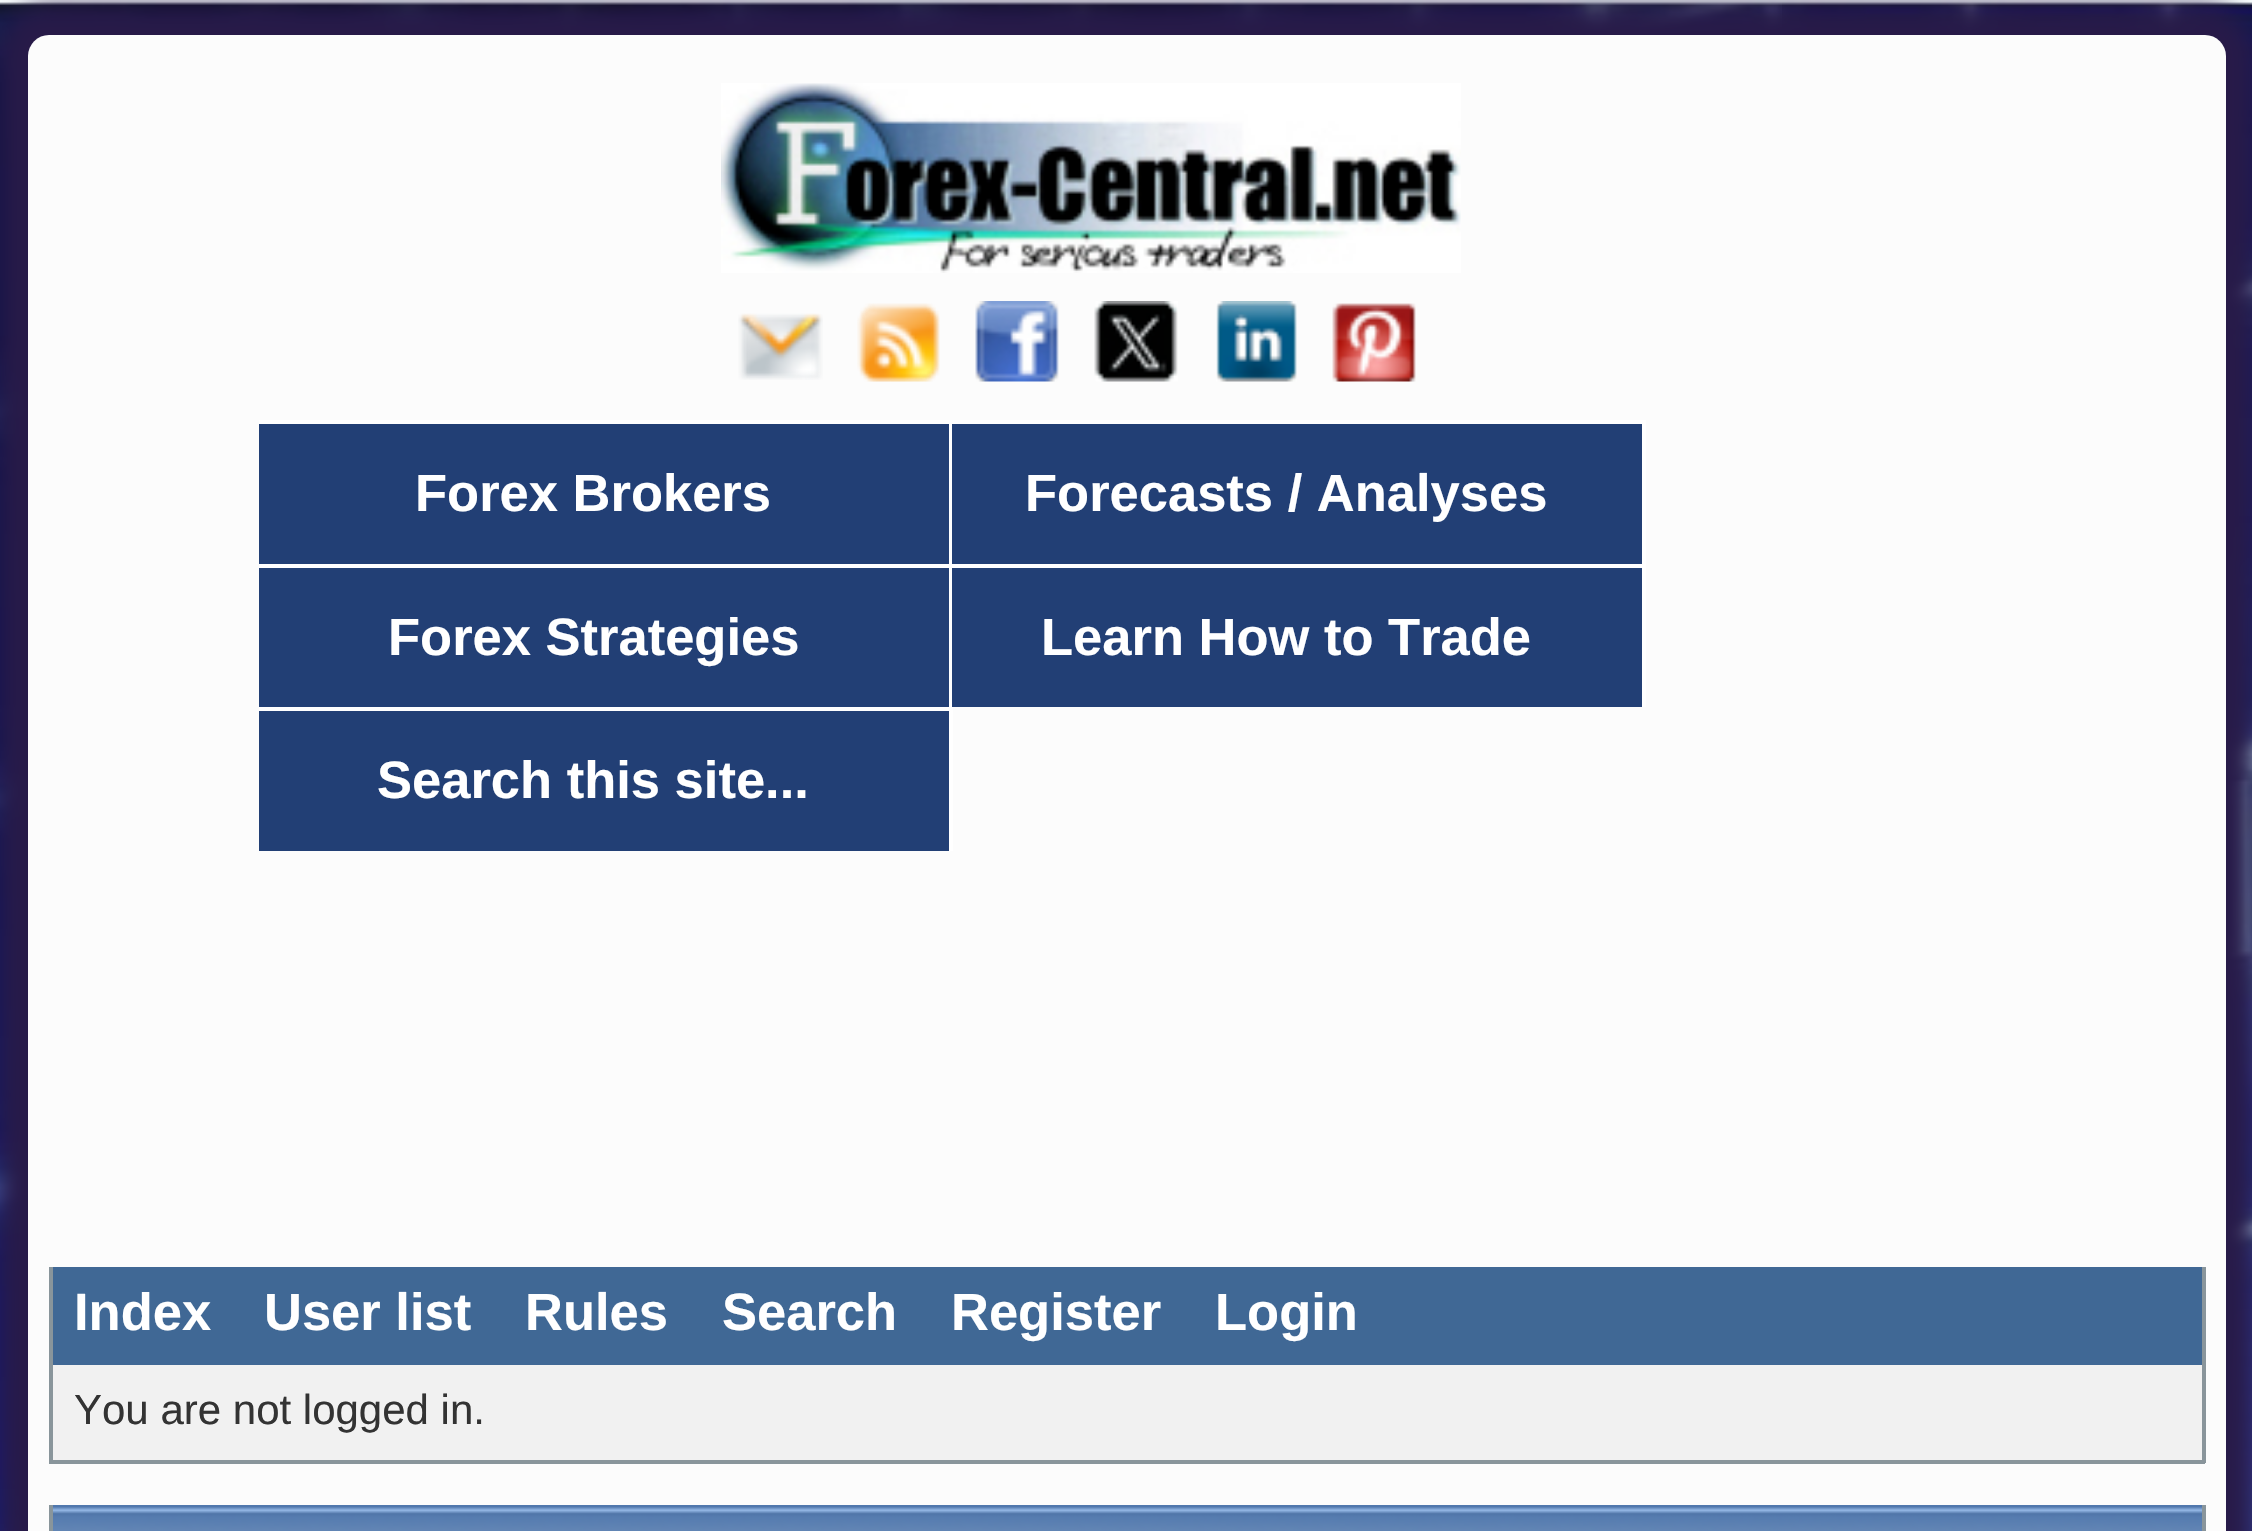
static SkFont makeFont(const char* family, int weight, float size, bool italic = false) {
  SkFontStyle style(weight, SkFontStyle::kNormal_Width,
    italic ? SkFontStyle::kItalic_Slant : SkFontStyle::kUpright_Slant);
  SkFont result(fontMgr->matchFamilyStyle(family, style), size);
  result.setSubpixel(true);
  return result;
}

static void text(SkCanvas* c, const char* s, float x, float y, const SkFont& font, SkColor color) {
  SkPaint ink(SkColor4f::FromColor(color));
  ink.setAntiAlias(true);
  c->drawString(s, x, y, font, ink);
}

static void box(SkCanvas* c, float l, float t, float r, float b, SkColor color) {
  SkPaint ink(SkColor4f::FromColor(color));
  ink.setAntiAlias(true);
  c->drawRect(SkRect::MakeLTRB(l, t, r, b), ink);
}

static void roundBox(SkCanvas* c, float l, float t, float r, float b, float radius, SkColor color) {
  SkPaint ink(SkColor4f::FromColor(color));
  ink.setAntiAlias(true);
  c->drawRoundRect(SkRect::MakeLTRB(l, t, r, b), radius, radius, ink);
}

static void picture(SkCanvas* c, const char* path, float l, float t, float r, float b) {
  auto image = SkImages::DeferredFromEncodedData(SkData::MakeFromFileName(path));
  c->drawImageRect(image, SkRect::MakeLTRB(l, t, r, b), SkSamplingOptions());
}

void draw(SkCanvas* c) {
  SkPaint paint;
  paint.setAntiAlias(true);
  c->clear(0xffffffff);
  picture(c, "img_01.png", 0, 0, 2252, 1531);
  picture(c, "img_02.png", 28, 35, 2226, 56);
  paint.setColor(0xff271a48);
  paint.setMaskFilter(SkMaskFilter::MakeBlur(kNormal_SkBlurStyle, 12));
  c->drawRoundRect(SkRect::MakeLTRB(0, 7, 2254, 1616), 49, 49, paint);
  paint.setMaskFilter(nullptr);
  roundBox(c, 28, 35, 2226, 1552, 21, 0xfffcfcfc);
  picture(c, "img_03.png", 721, 83, 1461, 273);
  picture(c, "img_04.png", 738, 313, 823, 380);
  picture(c, "img_05.png", 857, 303, 940, 382);
  picture(c, "img_06.png", 975, 301, 1059, 382);
  picture(c, "img_07.png", 1094, 301, 1178, 382);
  picture(c, "img_08.png", 1216, 301, 1297, 382);
  picture(c, "img_09.png", 1332, 303, 1416, 382);
  box(c, 259, 424, 949, 564, 0xff223f75);
  box(c, 259, 420, 1645, 424, 0xffffffff);
  box(c, 949, 420, 952, 564, 0xffffffff);
  SkFont face1 = makeFont("Liberation Sans", 700, 52.5f);
  text(c, "Forex Brokers", 415, 511, face1, 0xffffffff);
  box(c, 952, 424, 1642, 564, 0xff223f75);
  box(c, 1642, 420, 1646, 564, 0xffffffff);
  text(c, "Forecasts / Analyses", 1025, 511, face1, 0xffffffff);
  box(c, 259, 568, 949, 707, 0xff223f75);
  box(c, 259, 564, 1645, 568, 0xffffffff);
  box(c, 949, 564, 952, 707, 0xffffffff);
  text(c, "Forex Strategies", 388, 655, face1, 0xffffffff);
  box(c, 952, 568, 1642, 707, 0xff223f75);
  box(c, 1642, 564, 1646, 707, 0xffffffff);
  text(c, "Learn How to Trade", 1041, 655, face1, 0xffffffff);
  box(c, 259, 711, 949, 851, 0xff223f75);
  box(c, 259, 707, 952, 711, 0xffffffff);
  box(c, 949, 707, 953, 851, 0xffffffff);
  text(c, "Search this site...", 377, 798, face1, 0xffffffff);
  box(c, 53, 1365, 2202, 1460, 0xfff1f1f1);
  box(c, 2202, 1267, 2206, 1463, 0xff89959b);
  box(c, 49, 1460, 2205, 1464, 0xff89959b);
  box(c, 49, 1267, 53, 1463, 0xff89959b);
  box(c, 53, 1267, 2202, 1365, 0xff406895);
  text(c, "Index", 74, 1330, face1, 0xffffffff);
  text(c, "User list", 264, 1330, face1, 0xffffffff);
  text(c, "Rules", 525, 1330, face1, 0xffffffff);
  text(c, "Search", 722, 1330, face1, 0xffffffff);
  text(c, "Register", 951, 1330, face1, 0xffffffff);
  text(c, "Login", 1215, 1330, face1, 0xffffffff);
  SkFont face2 = makeFont("Liberation Sans", 400, 42);
  text(c, "You are not logged in.", 74, 1424, face2, 0xff333333);
  picture(c, "img_10.png", 53, 1505, 2202, 1531);
  box(c, 2202, 1505, 2206, 1531, 0xff89959b);
  box(c, 49, 1505, 53, 1531, 0xff89959b);
}
